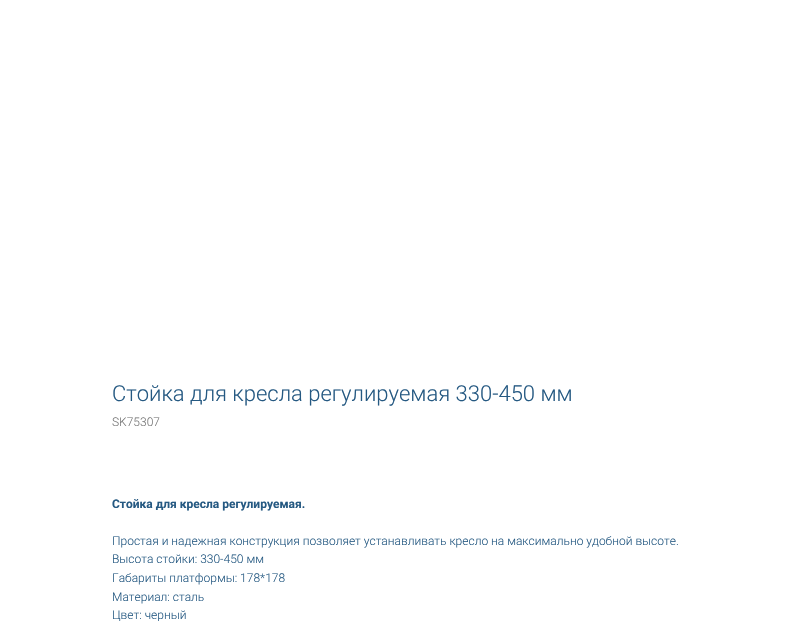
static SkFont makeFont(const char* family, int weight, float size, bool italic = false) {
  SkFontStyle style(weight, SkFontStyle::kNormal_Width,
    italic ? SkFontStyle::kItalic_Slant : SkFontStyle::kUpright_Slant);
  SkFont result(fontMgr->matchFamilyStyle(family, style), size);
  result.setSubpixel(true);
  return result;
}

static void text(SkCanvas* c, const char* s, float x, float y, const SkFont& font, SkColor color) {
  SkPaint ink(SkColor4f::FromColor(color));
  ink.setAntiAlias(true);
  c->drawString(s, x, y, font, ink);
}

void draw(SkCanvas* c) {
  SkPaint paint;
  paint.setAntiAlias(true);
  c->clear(0xffffffff);
  SkFont face1 = makeFont("Roboto", 300, 22);
  text(c, "Стойка для кресла регулируемая 330-450 мм", 112, 401, face1, 0xff255982);
  SkFont face2 = makeFont("Roboto", 300, 12);
  text(c, "SK75307", 112, 426, face2, 0xff777777);
  SkFont face3 = makeFont("Roboto", 700, 12);
  text(c, "Стойка для кресла регулируемая.", 112, 508, face3, 0xff255982);
  text(c, "Простая и надежная конструкция позволяет устанавливать кресло на максимально удобной высоте.", 112, 545, face2, 0xff255982);
  text(c, "Высота стойки: 330-450 мм", 112, 563, face2, 0xff255982);
  text(c, "Габариты платформы: 178*178", 112, 582, face2, 0xff255982);
  text(c, "Материал: сталь", 112, 601, face2, 0xff255982);
  text(c, "Цвет: черный", 112, 619, face2, 0xff255982);
}
